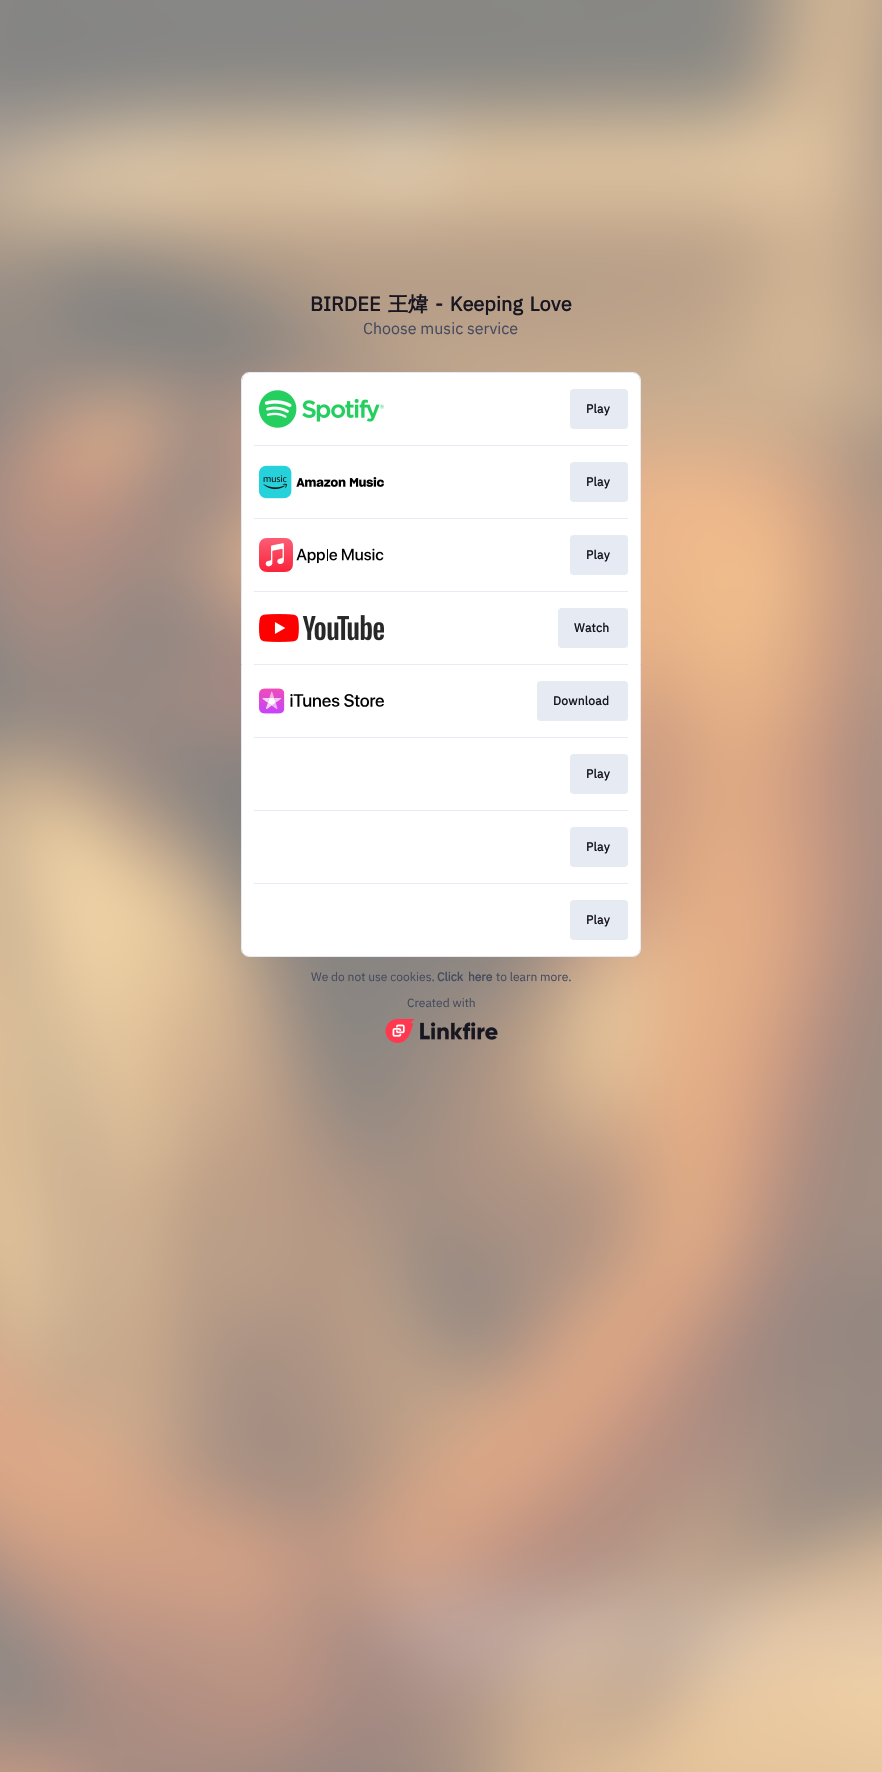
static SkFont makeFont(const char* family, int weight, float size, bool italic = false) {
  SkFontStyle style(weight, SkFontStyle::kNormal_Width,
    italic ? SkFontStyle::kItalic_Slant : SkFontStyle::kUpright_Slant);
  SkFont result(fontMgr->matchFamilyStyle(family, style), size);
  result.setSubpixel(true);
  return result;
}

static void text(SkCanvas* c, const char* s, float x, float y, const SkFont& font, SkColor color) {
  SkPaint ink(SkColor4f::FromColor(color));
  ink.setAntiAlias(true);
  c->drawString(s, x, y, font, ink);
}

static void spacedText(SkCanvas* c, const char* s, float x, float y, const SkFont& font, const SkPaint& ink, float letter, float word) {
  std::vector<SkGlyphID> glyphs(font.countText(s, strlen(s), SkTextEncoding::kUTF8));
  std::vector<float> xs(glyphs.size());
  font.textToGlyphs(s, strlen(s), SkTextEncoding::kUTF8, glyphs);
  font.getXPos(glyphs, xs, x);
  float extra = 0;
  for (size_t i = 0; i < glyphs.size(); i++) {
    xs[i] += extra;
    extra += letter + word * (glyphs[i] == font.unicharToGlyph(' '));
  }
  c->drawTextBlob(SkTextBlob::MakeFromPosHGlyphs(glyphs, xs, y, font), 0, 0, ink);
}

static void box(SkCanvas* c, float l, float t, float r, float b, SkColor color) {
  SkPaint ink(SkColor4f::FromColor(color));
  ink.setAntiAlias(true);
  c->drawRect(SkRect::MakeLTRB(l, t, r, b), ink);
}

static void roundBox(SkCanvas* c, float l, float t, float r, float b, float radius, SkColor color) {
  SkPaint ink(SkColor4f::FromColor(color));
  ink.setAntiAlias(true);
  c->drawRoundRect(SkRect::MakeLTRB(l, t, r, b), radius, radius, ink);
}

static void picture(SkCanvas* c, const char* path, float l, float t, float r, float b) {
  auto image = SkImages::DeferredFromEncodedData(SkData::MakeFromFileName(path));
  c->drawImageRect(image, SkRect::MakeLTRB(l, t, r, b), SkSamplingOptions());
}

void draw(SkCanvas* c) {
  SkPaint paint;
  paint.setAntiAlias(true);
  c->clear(0xffffffff);
  picture(c, "img_01.png", 0, 0, 882, 1772);
  SkFont face1 = makeFont("IBM Plex Sans", 700, 20);
  text(c, "BIRDEE", 310, 311, face1, 0xff181721);
  SkFont face2 = makeFont("WenQuanYi Zen Hei", 700, 20);
  text(c, "王煒", 388, 311, face2, 0xff181721);
  paint.setColor(0xff181721);
  spacedText(c, "- Keeping Love", 435, 311, face1, paint, 0, 2);
  SkFont face3 = makeFont("IBM Plex Sans", 400, 16);
  text(c, "Choose music service", 363, 334, face3, 0xff454b5f);
  paint.setStyle(SkPaint::kStroke_Style);
  paint.setStrokeWidth(1);
  paint.setColor(0xffe6eaf2);
  c->drawRoundRect(SkRect::MakeLTRB(241.5f, 372.5f, 640.5f, 956.5f), 7.5f, 7.5f, paint);
  roundBox(c, 242, 373, 640, 956, 7, 0xffffffff);
  picture(c, "img_02.png", 259, 390, 384, 428);
  roundBox(c, 570, 389, 628, 429, 4, 0xffe6eaf2);
  SkFont face4 = makeFont("IBM Plex Sans", 700, 12);
  paint.setStyle(SkPaint::kFill_Style);
  paint.setColor(0xff181721);
  spacedText(c, "Play", 586, 413, face4, paint, 0.25f, 0);
  box(c, 254, 445, 628, 446, 0xffe6eaf2);
  picture(c, "img_03.png", 259, 465, 384, 499);
  roundBox(c, 570, 462, 628, 502, 4, 0xffe6eaf2);
  spacedText(c, "Play", 586, 486, face4, paint, 0.25f, 0);
  box(c, 254, 518, 628, 519, 0xffe6eaf2);
  picture(c, "img_04.png", 259, 538, 384, 572);
  roundBox(c, 570, 535, 628, 575, 4, 0xffe6eaf2);
  spacedText(c, "Play", 586, 559, face4, paint, 0.25f, 0);
  box(c, 254, 591, 628, 592, 0xffe6eaf2);
  picture(c, "img_05.png", 259, 614, 384, 642);
  roundBox(c, 558, 608, 628, 648, 4, 0xffe6eaf2);
  spacedText(c, "Watch", 574, 632, face4, paint, 0.25f, 0);
  box(c, 254, 664, 628, 665, 0xffe6eaf2);
  picture(c, "img_06.png", 259, 688, 384, 714);
  roundBox(c, 537, 681, 628, 721, 4, 0xffe6eaf2);
  spacedText(c, "Download", 553, 705, face4, paint, 0.25f, 0);
  box(c, 254, 737, 628, 738, 0xffe6eaf2);
  roundBox(c, 570, 754, 628, 794, 4, 0xffe6eaf2);
  spacedText(c, "Play", 586, 778, face4, paint, 0.25f, 0);
  box(c, 254, 810, 628, 811, 0xffe6eaf2);
  roundBox(c, 570, 827, 628, 867, 4, 0xffe6eaf2);
  spacedText(c, "Play", 586, 851, face4, paint, 0.25f, 0);
  box(c, 254, 883, 628, 884, 0xffe6eaf2);
  roundBox(c, 570, 900, 628, 940, 4, 0xffe6eaf2);
  spacedText(c, "Play", 586, 924, face4, paint, 0.25f, 0);
  SkFont face5 = makeFont("IBM Plex Sans", 400, 12);
  text(c, "We do not use cookies.", 311, 981, face5, 0xff454b5f);
  paint.setColor(0xff454b5f);
  spacedText(c, "Click here", 437, 981, face4, paint, 0, 2);
  text(c, "to learn more.", 496, 981, face5, 0xff454b5f);
  text(c, "Created with", 407, 1007, face5, 0xff454b5f);
  picture(c, "img_07.png", 385, 1019, 498, 1043);
}
